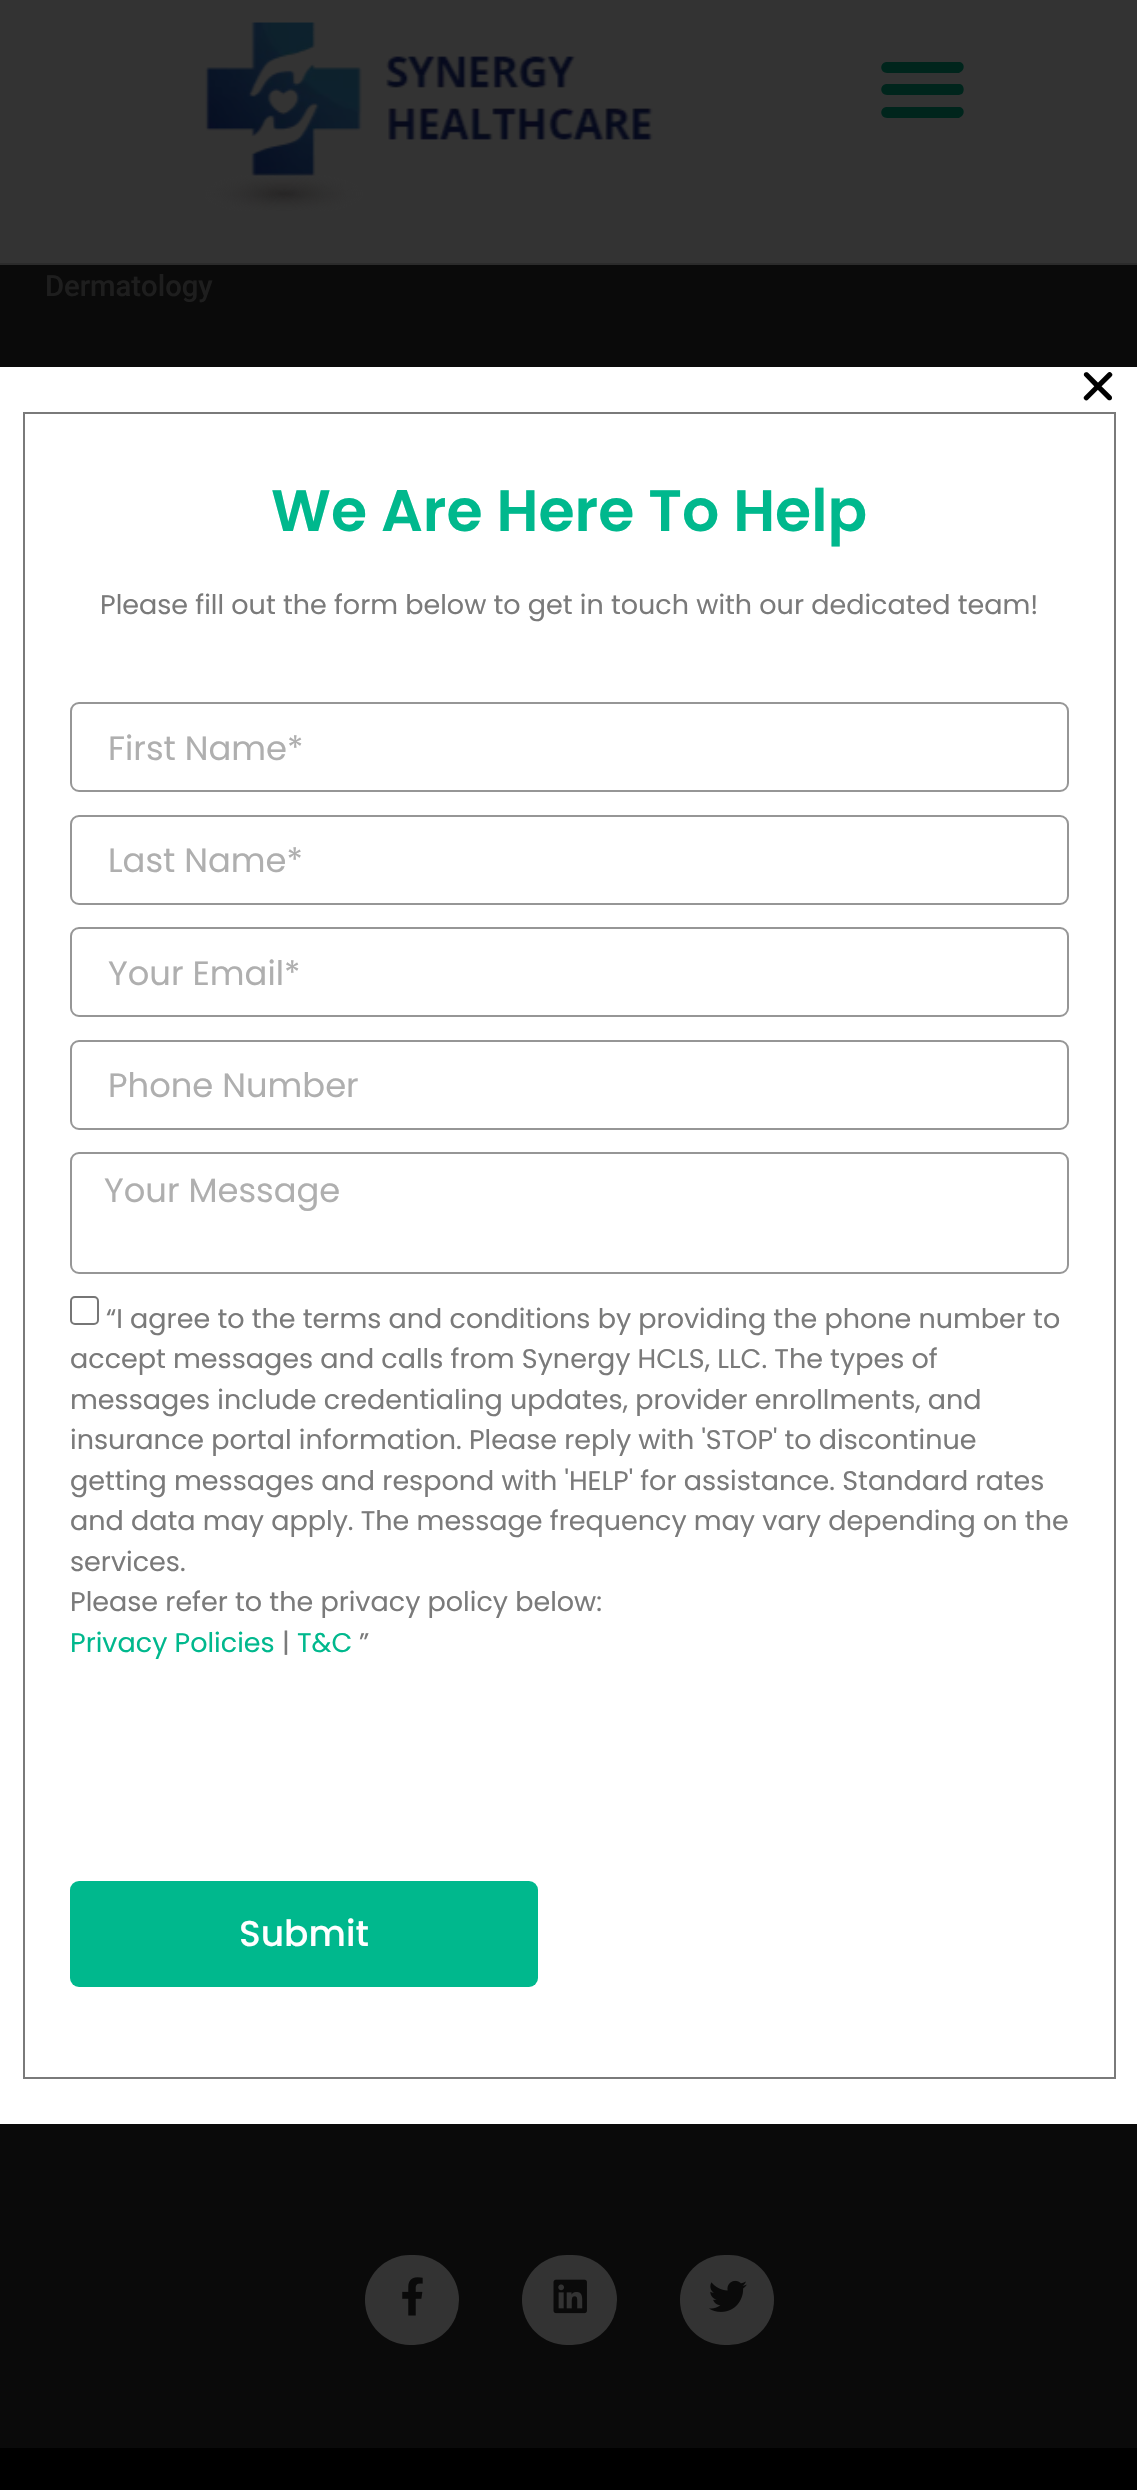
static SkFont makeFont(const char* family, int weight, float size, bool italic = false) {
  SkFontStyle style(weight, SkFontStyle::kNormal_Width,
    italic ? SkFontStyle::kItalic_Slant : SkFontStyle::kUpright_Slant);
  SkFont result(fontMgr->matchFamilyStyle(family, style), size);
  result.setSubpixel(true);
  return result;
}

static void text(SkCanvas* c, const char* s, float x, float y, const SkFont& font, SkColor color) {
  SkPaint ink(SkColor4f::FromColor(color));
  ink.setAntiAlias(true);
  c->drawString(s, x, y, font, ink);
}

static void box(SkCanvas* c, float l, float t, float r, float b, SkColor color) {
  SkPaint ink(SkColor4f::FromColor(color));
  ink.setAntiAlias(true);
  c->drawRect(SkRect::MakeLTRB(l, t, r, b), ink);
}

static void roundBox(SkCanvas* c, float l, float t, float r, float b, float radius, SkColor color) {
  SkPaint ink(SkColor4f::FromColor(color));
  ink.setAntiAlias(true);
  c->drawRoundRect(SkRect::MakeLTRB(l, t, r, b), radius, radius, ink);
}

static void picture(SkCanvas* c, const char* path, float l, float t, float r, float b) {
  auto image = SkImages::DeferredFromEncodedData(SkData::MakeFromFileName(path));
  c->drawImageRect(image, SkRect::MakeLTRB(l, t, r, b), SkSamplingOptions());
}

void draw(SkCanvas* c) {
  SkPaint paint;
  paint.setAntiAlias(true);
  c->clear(0xff0a0a0a);
  box(c, 0, 0, 1137, 263, 0xff333333);
  box(c, 0, 263, 1137, 265, 0xff2b2b2b);
  picture(c, "img_01.png", 205, 22, 653, 211);
  paint.setColor(0xff00251c);
  c->drawPath(SkPathBuilder().moveTo(887, 73).lineTo(959, 73).lineTo(962, 71).cubicTo(965, 68, 964, 63, 960, 62).lineTo(886, 62).cubicTo(879, 63, 880, 73, 887, 73).close().moveTo(887, 95).lineTo(959, 95).lineTo(962, 94).cubicTo(965, 91, 964, 85, 960, 84).lineTo(886, 84).cubicTo(879, 85, 880, 95, 887, 95).close().moveTo(887, 118).lineTo(959, 118).lineTo(962, 116).cubicTo(965, 113, 964, 108, 960, 107).lineTo(886, 107).cubicTo(879, 108, 880, 118, 887, 118).close().detach(), paint);
  SkFont face1 = makeFont("Roboto", 500, 29.25f);
  text(c, "Dermatology", 45, 296, face1, 0xff1e1e1e);
  roundBox(c, 365, 2255, 459, 2345, 45, 0xff333333);
  picture(c, "img_02.png", 402, 2277, 423, 2316);
  roundBox(c, 522, 2255, 617, 2345, 45, 0xff333333);
  picture(c, "img_03.png", 553, 2279, 587, 2314);
  roundBox(c, 680, 2255, 774, 2345, 45, 0xff333333);
  picture(c, "img_04.png", 709, 2280, 747, 2312);
  box(c, 0, 2448, 1137, 2490, 0xff000000);
  box(c, 0, 367, 1137, 2124, 0xffffffff);
  picture(c, "img_05.png", 1083, 372, 1113, 401);
  paint.setStyle(SkPaint::kStroke_Style);
  paint.setStrokeWidth(2);
  paint.setColor(0xff7a7a7a);
  c->drawRect(SkRect::MakeLTRB(24, 413, 1115, 2078), paint);
  SkFont face2 = makeFont("Poppins", 600, 58.5f);
  text(c, "We Are Here To Help", 271, 531, face2, 0xff00b88d);
  SkFont face3 = makeFont("Poppins", 400, 27);
  text(c, "Please fill out the form below to get in touch with our dedicated team!", 100, 614, face3, 0xff7a7a7a);
  paint.setColor(0xff969696);
  c->drawRoundRect(SkRect::MakeLTRB(71, 703, 1068, 791), 8, 8, paint);
  SkFont face4 = makeFont("Poppins", 400, 33.75f);
  text(c, "First Name*", 108, 760, face4, 0xffafafaf);
  c->drawRoundRect(SkRect::MakeLTRB(71, 816, 1068, 904), 8, 8, paint);
  text(c, "Last Name*", 108, 872, face4, 0xffafafaf);
  c->drawRoundRect(SkRect::MakeLTRB(71, 928, 1068, 1016), 8, 8, paint);
  text(c, "Your Email*", 108, 985, face4, 0xffafafaf);
  c->drawRoundRect(SkRect::MakeLTRB(71, 1041, 1068, 1129), 8, 8, paint);
  text(c, "Phone Number", 108, 1097, face4, 0xffafafaf);
  c->drawRoundRect(SkRect::MakeLTRB(71, 1153, 1068, 1273), 8, 8, paint);
  text(c, "Your Message", 104, 1202, face4, 0xffafafaf);
  paint.setColor(0xff767676);
  c->drawRoundRect(SkRect::MakeLTRB(71, 1297, 98, 1324), 4, 4, paint);
  text(c, "“I agree to the terms and conditions by providing the phone number to", 106, 1328, face3, 0xff7a7a7a);
  text(c, "accept messages and calls from Synergy HCLS, LLC. The types of", 70, 1368, face3, 0xff7a7a7a);
  text(c, "messages include credentialing updates, provider enrollments, and", 70, 1409, face3, 0xff7a7a7a);
  text(c, "insurance portal information. Please reply with 'STOP' to discontinue", 70, 1449, face3, 0xff7a7a7a);
  text(c, "getting messages and respond with 'HELP' for assistance. Standard rates", 70, 1490, face3, 0xff7a7a7a);
  text(c, "and data may apply. The message frequency may vary depending on the", 70, 1530, face3, 0xff7a7a7a);
  text(c, "services.", 70, 1571, face3, 0xff7a7a7a);
  text(c, "Please refer to the privacy policy below:", 70, 1611, face3, 0xff7a7a7a);
  text(c, "Privacy Policies", 70, 1652, face3, 0xff00b88d);
  text(c, "|", 282, 1652, face3, 0xff7a7a7a);
  text(c, "T&C", 297, 1652, face3, 0xff00b88d);
  text(c, "”", 359, 1652, face3, 0xff7a7a7a);
  roundBox(c, 70, 1881, 538, 1987, 9, 0xff00b88d);
  SkFont face5 = makeFont("Poppins", 500, 36);
  text(c, "Submit", 239, 1946, face5, 0xffffffff);
}
